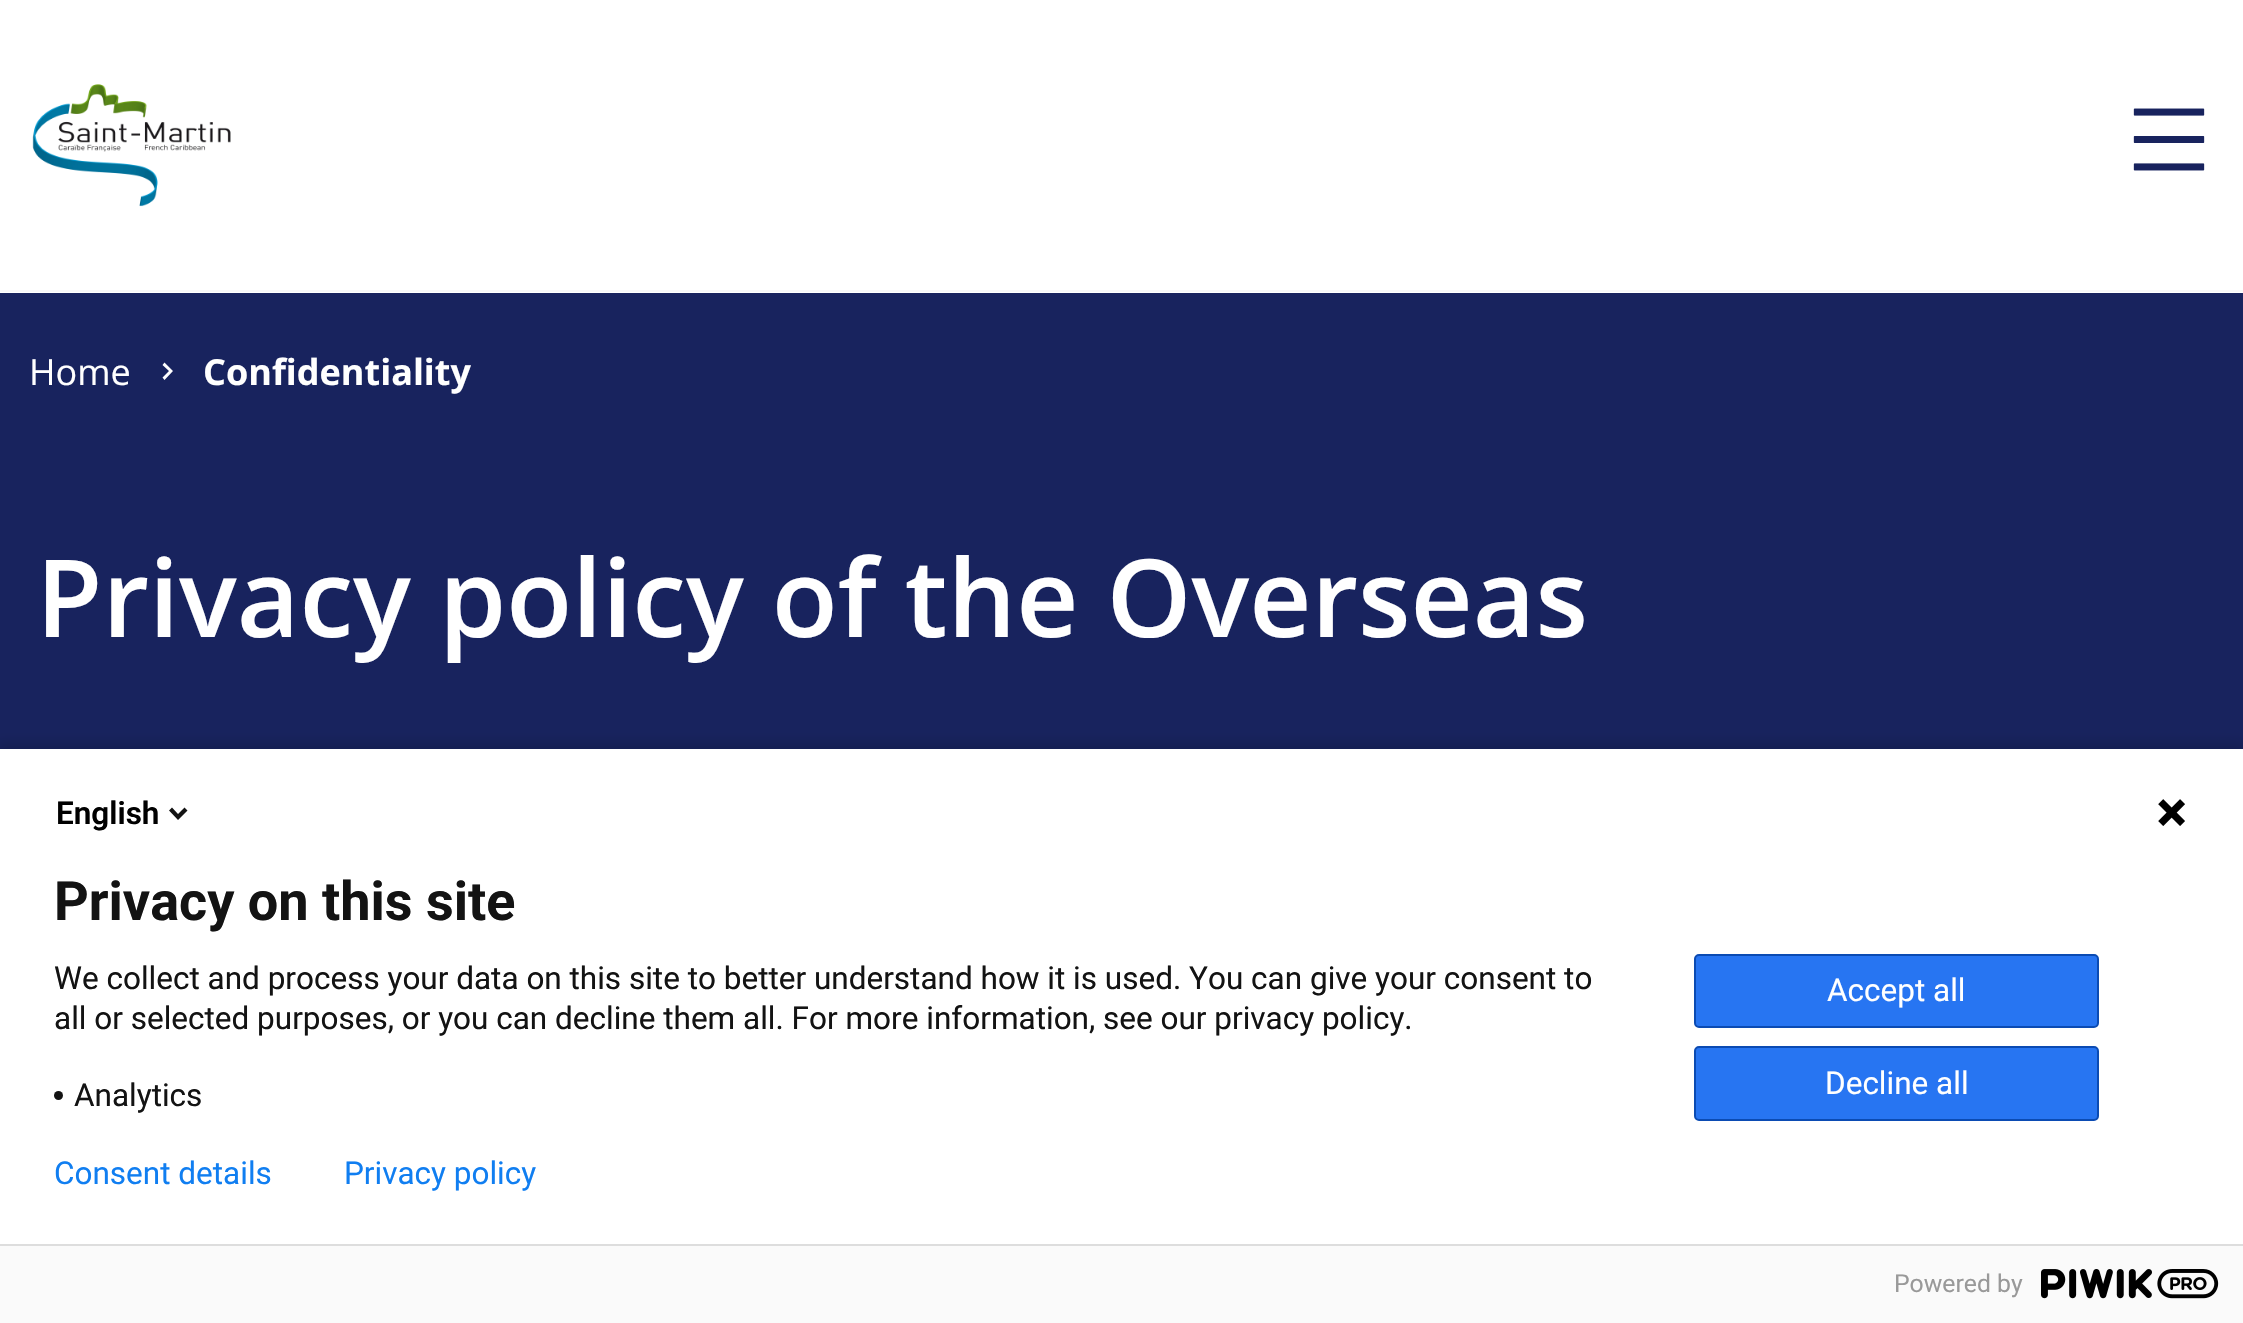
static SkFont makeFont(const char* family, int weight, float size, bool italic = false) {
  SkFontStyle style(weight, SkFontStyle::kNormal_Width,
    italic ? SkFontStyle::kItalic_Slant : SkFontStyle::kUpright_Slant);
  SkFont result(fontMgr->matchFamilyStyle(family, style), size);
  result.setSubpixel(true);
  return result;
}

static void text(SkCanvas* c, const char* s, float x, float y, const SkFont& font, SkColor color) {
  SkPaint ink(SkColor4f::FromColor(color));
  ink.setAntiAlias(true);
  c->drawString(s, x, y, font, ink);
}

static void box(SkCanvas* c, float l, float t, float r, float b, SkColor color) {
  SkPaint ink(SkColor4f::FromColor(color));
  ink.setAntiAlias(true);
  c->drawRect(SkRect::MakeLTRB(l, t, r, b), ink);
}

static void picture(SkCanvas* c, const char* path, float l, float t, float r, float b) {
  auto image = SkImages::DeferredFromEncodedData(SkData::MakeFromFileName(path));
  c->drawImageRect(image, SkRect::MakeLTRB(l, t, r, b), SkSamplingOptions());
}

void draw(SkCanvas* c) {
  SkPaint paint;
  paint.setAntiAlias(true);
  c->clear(0xffffffff);
  box(c, 0, 290, 2243, 292, 0xfff8f8f8);
  picture(c, "img_01.png", 32, 84, 231, 207);
  picture(c, "img_02.png", 2133, 108, 2205, 171);
  box(c, 0, 293, 2243, 749, 0xff18235e);
  SkFont face1 = makeFont("Open Sans", 400, 36);
  text(c, "Home", 29, 385, face1, 0xffffffff);
  paint.setColor(0xffffffff);
  c->drawPath(SkPathBuilder().moveTo(164.5f, 380).lineTo(173, 371).lineTo(164.5f, 362.5f).lineTo(162.5f, 365).lineTo(169, 371).lineTo(162.5f, 377.5f).close().detach(), paint);
  SkFont face2 = makeFont("Open Sans", 700, 36);
  text(c, "Confidentiality", 203, 385, face2, 0xffffffff);
  SkFont face3 = makeFont("Open Sans", 600, 108);
  text(c, "Privacy policy of the Overseas", 36, 637, face3, 0xffffffff);
  paint.setColor(0x24000000);
  paint.setMaskFilter(SkMaskFilter::MakeBlur(kNormal_SkBlurStyle, 5.5f));
  c->drawRect(SkRect::MakeLTRB(-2, 743, 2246, 1321), paint);
  paint.setMaskFilter(nullptr);
  box(c, 0, 749, 2243, 1244, 0xffffffff);
  SkFont face4 = makeFont("Roboto", 600, 31.5f);
  text(c, "English", 56, 824, face4, 0xff000000);
  paint.setColor(0xff131313);
  c->drawPath(SkPathBuilder().moveTo(178, 814).lineTo(184.5f, 807.5f).lineTo(187.5f, 810.5f).lineTo(178, 820).lineTo(169, 810.5f).lineTo(172, 807.5f).close().detach(), paint);
  picture(c, "img_03.png", 2158, 799, 2185, 826);
  SkFont face5 = makeFont("Roboto", 700, 54);
  text(c, "Privacy on this site", 54, 920, face5, 0xff131313);
  SkFont face6 = makeFont("Roboto", 400, 31.5f);
  text(c, "We collect and process your data on this site to better understand how it is used. You can give your consent to", 54, 989, face6, 0xff131313);
  text(c, "all or selected purposes, or you can decline them all. For more information, see our privacy policy.", 54, 1029, face6, 0xff131313);
  c->drawCircle(58.5f, 1095.5f, 4.5f, paint);
  text(c, "Analytics", 74, 1106, face6, 0xff131313);
  paint.setColor(0xff2775f2);
  c->drawRoundRect(SkRect::MakeLTRB(1695, 955, 2098, 1027), 4, 4, paint);
  paint.setStyle(SkPaint::kStroke_Style);
  paint.setStrokeWidth(2);
  paint.setColor(0xff0b4bb3);
  c->drawRoundRect(SkRect::MakeLTRB(1695, 955, 2098, 1027), 4, 4, paint);
  text(c, "Accept all", 1827, 1001, face6, 0xffffffff);
  paint.setStyle(SkPaint::kFill_Style);
  paint.setColor(0xff2775f2);
  c->drawRoundRect(SkRect::MakeLTRB(1695, 1047, 2098, 1120), 4, 4, paint);
  paint.setStyle(SkPaint::kStroke_Style);
  paint.setColor(0xff0b4bb3);
  c->drawRoundRect(SkRect::MakeLTRB(1695, 1047, 2098, 1120), 4, 4, paint);
  text(c, "Decline all", 1825, 1094, face6, 0xffffffff);
  text(c, "Consent details", 54, 1184, face6, 0xff107ef1);
  text(c, "Privacy policy", 344, 1184, face6, 0xff107ef1);
  box(c, 0, 1246, 2243, 1323, 0xfffafafa);
  box(c, 0, 1244, 2243, 1246, 0xffdddddd);
  SkFont face7 = makeFont("Roboto", 400, 24.75f);
  text(c, "Powered by", 1894, 1292, face7, 0xff999999);
  picture(c, "img_04.png", 2041, 1269, 2219, 1299);
}
